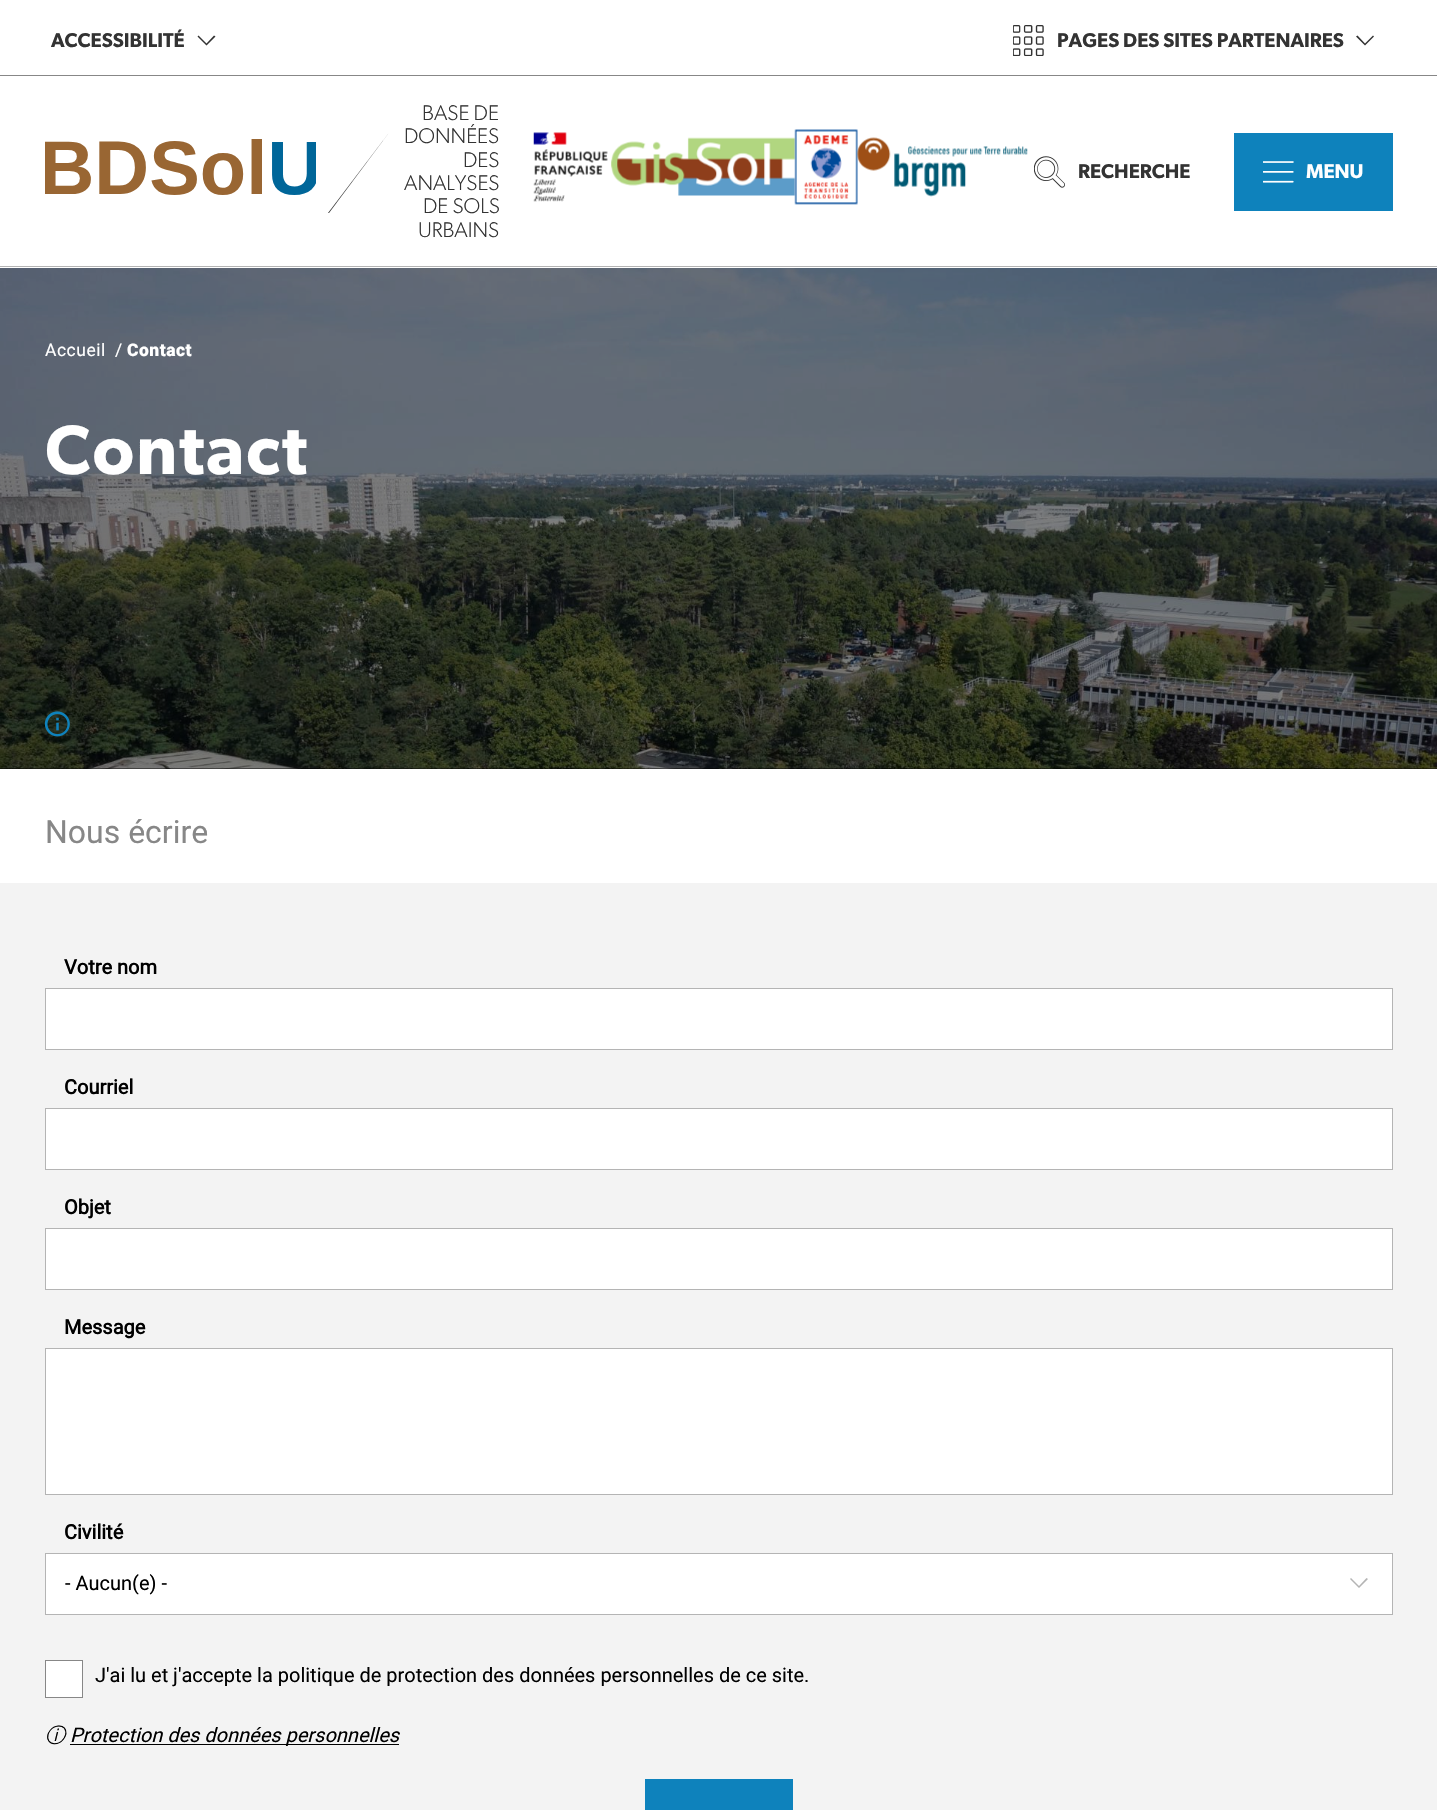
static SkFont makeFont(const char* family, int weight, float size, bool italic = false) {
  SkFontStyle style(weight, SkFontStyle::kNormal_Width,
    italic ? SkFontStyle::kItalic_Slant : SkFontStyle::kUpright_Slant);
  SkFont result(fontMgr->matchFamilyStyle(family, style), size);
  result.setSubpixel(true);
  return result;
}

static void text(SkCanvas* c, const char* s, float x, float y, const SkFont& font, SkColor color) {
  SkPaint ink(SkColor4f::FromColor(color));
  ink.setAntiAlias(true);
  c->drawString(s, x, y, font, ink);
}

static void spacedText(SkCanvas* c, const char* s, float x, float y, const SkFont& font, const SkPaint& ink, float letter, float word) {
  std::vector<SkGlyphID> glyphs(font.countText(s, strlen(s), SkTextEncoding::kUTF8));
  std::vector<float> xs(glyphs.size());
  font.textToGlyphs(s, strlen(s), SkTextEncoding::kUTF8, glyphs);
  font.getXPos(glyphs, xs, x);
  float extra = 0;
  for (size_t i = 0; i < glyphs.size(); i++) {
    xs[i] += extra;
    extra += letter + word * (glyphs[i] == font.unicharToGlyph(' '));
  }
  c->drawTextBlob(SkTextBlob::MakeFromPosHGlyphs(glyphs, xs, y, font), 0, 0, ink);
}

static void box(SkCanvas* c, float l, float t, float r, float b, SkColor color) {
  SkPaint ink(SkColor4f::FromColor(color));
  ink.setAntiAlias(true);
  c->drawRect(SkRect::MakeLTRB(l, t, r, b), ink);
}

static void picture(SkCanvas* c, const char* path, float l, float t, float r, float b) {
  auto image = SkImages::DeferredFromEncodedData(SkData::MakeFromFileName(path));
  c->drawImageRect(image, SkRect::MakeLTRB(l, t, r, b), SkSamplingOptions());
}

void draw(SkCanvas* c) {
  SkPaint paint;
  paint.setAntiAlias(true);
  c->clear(0xffffffff);
  box(c, 0, 266, 1437, 267, 0xffb4b4b4);
  box(c, 0, 75, 1437, 76, 0xff878787);
  SkFont face1 = makeFont("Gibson", 600, 20);
  text(c, "ACCESSIBILITÉ", 51, 47, face1, 0xff333333);
  paint.setColor(0xff333333);
  c->drawPath(SkPathBuilder().moveTo(215.5f, 36.5f).lineTo(206.5f, 45.5f).lineTo(197.5f, 36.5f).lineTo(198.5f, 35.5f).lineTo(206.5f, 43.5f).lineTo(214, 35.5f).close().detach(), paint);
  picture(c, "img_01.png", 1013, 25, 1044, 56);
  text(c, "PAGES DES SITES PARTENAIRES", 1057, 47, face1, 0xff333333);
  c->drawPath(SkPathBuilder().moveTo(1374, 36.5f).lineTo(1365, 45.5f).lineTo(1356, 36.5f).lineTo(1357.5f, 35.5f).lineTo(1365, 43.5f).lineTo(1373, 35.5f).close().detach(), paint);
  picture(c, "img_02.png", 45, 139, 316, 195);
  c->drawPath(SkPathBuilder().moveTo(391, 130).lineTo(329, 213).lineTo(328, 213).close().detach(), paint);
  SkFont face2 = makeFont("Gibson", 300, 21.25f);
  text(c, "BASE DE", 422, 120, face2, 0xff333333);
  text(c, "DONNÉES", 404, 143, face2, 0xff333333);
  text(c, "DES", 463, 167, face2, 0xff333333);
  text(c, "ANALYSES", 404, 190, face2, 0xff333333);
  text(c, "DE SOLS", 423, 213, face2, 0xff333333);
  text(c, "URBAINS", 418, 237, face2, 0xff333333);
  picture(c, "img_03.png", 533, 132, 608, 202);
  picture(c, "img_04.png", 611, 137, 796, 196);
  picture(c, "img_05.png", 794, 129, 858, 205);
  picture(c, "img_06.png", 857, 137, 1028, 197);
  picture(c, "img_07.png", 1034, 156, 1065, 188);
  text(c, "RECHERCHE", 1078, 178, face1, 0xff333333);
  box(c, 1234, 133, 1393, 211, 0xff0e82bc);
  picture(c, "img_08.png", 1263, 161, 1294, 183);
  text(c, "MENU", 1306, 178, face1, 0xffffffff);
  box(c, 0, 768, 1437, 769, 0xff000000);
  picture(c, "img_09.png", 0, 268, 1437, 769);
  picture(c, "img_10.png", 44, 711, 70, 737);
  SkFont face3 = makeFont("Roboto", 400, 17.5f);
  paint.setColor(0xffffffff);
  spacedText(c, "Accueil", 45, 356, face3, paint, 0.5f, 0);
  text(c, "/", 115, 356, face3, 0xffffffff);
  SkFont face4 = makeFont("Roboto", 900, 17.5f);
  spacedText(c, "Contact", 127, 356, face4, paint, 0.5f, 0);
  SkFont face5 = makeFont("Gibson", 600, 70);
  spacedText(c, "Contact", 45, 474, face5, paint, 2, 0);
  SkFont face6 = makeFont("Roboto", 400, 32);
  text(c, "Nous écrire", 45, 843, face6, 0xff878787);
  box(c, 0, 883, 1437, 1810, 0xfff3f3f3);
  SkFont face7 = makeFont("Roboto", 700, 20);
  text(c, "Votre nom", 64, 974, face7, 0xff000000);
  c->drawRect(SkRect::MakeLTRB(45.5f, 988.5f, 1392.5f, 1049.5f), paint);
  paint.setStyle(SkPaint::kStroke_Style);
  paint.setStrokeWidth(1);
  paint.setColor(0xffb4b4b4);
  c->drawRect(SkRect::MakeLTRB(45.5f, 988.5f, 1392.5f, 1049.5f), paint);
  text(c, "Courriel", 64, 1094, face7, 0xff000000);
  paint.setStyle(SkPaint::kFill_Style);
  paint.setColor(0xffffffff);
  c->drawRect(SkRect::MakeLTRB(45.5f, 1108.5f, 1392.5f, 1169.5f), paint);
  paint.setStyle(SkPaint::kStroke_Style);
  paint.setColor(0xffb4b4b4);
  c->drawRect(SkRect::MakeLTRB(45.5f, 1108.5f, 1392.5f, 1169.5f), paint);
  text(c, "Objet", 64, 1214, face7, 0xff000000);
  paint.setStyle(SkPaint::kFill_Style);
  paint.setColor(0xffffffff);
  c->drawRect(SkRect::MakeLTRB(45.5f, 1228.5f, 1392.5f, 1289.5f), paint);
  paint.setStyle(SkPaint::kStroke_Style);
  paint.setColor(0xffb4b4b4);
  c->drawRect(SkRect::MakeLTRB(45.5f, 1228.5f, 1392.5f, 1289.5f), paint);
  text(c, "Message", 64, 1334, face7, 0xff000000);
  paint.setStyle(SkPaint::kFill_Style);
  paint.setColor(0xffffffff);
  c->drawRect(SkRect::MakeLTRB(45.5f, 1348.5f, 1392.5f, 1494.5f), paint);
  paint.setStyle(SkPaint::kStroke_Style);
  paint.setColor(0xffb4b4b4);
  c->drawRect(SkRect::MakeLTRB(45.5f, 1348.5f, 1392.5f, 1494.5f), paint);
  text(c, "Civilité", 64, 1539, face7, 0xff000000);
  paint.setStyle(SkPaint::kFill_Style);
  paint.setColor(0xffffffff);
  c->drawRect(SkRect::MakeLTRB(45.5f, 1553.5f, 1392.5f, 1614.5f), paint);
  paint.setStyle(SkPaint::kStroke_Style);
  paint.setColor(0xffb4b4b4);
  c->drawRect(SkRect::MakeLTRB(45.5f, 1553.5f, 1392.5f, 1614.5f), paint);
  SkFont face8 = makeFont("Roboto", 400, 20);
  text(c, "- Aucun(e) -", 65, 1590, face8, 0xff000000);
  paint.setStyle(SkPaint::kFill_Style);
  c->drawPath(SkPathBuilder().moveTo(1368, 1579).lineTo(1359, 1588).lineTo(1350, 1579).lineTo(1351, 1578).lineTo(1359, 1586).lineTo(1366.5f, 1578).close().detach(), paint);
  paint.setColor(0xffffffff);
  c->drawRect(SkRect::MakeLTRB(45.5f, 1660.5f, 82.5f, 1697.5f), paint);
  paint.setStyle(SkPaint::kStroke_Style);
  paint.setColor(0xff878787);
  c->drawRect(SkRect::MakeLTRB(45.5f, 1660.5f, 82.5f, 1697.5f), paint);
  text(c, "J'ai lu et j'accepte la politique de protection des données personnelles de ce site.", 95, 1682, face8, 0xff000000);
  SkFont face9 = makeFont("WenQuanYi Zen Hei", 500, 20, true);
  text(c, "ⓘ", 45, 1742, face9, 0xff000000);
  box(c, 70, 1744, 399, 1745, 0xff000000);
  SkFont face10 = makeFont("Roboto", 400, 20, true);
  text(c, "Protection des données personnelles", 70, 1742, face10, 0xff000000);
  box(c, 645, 1779, 793, 1810, 0xff0e82bc);
}
